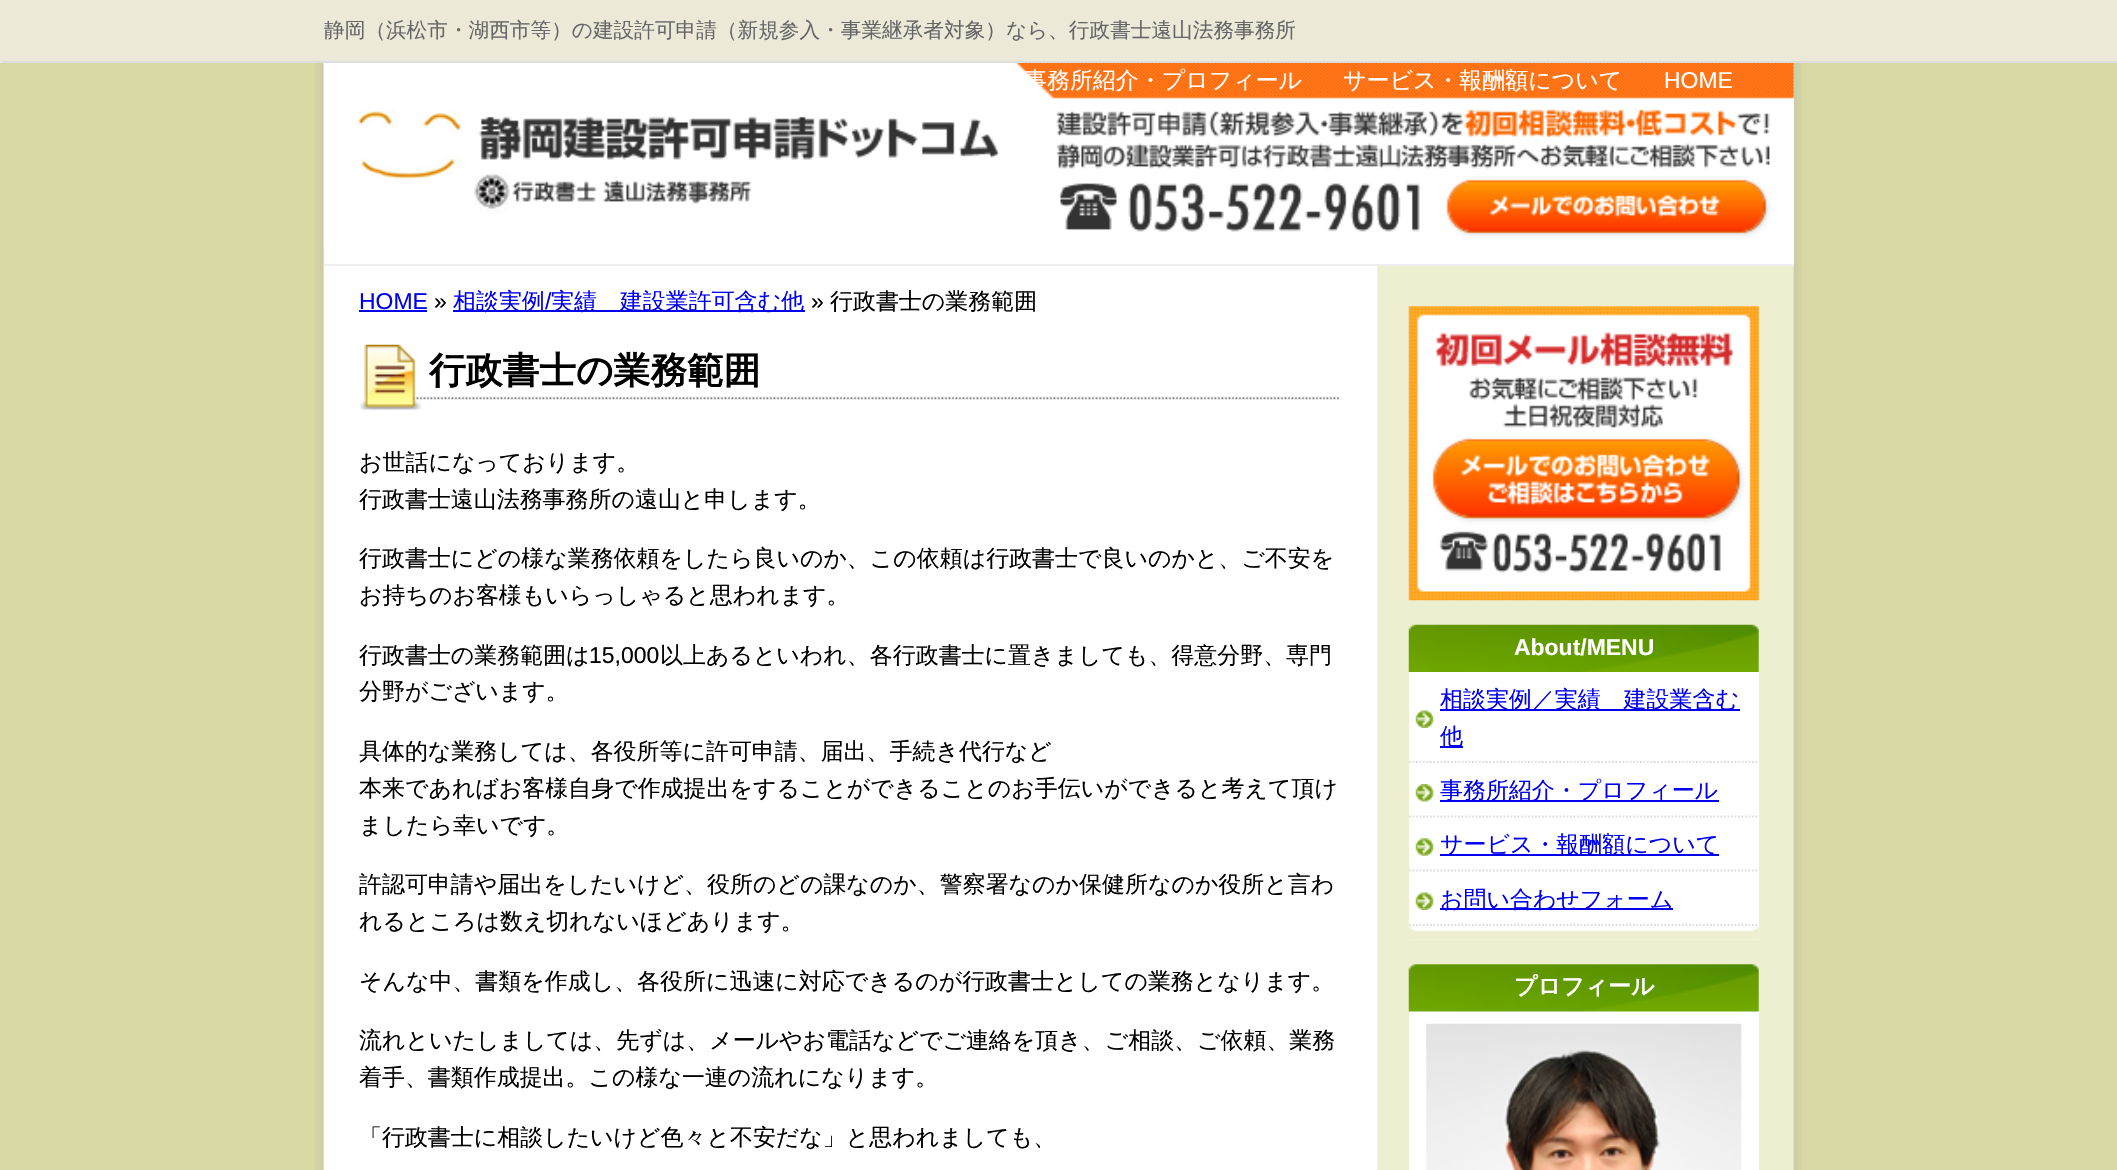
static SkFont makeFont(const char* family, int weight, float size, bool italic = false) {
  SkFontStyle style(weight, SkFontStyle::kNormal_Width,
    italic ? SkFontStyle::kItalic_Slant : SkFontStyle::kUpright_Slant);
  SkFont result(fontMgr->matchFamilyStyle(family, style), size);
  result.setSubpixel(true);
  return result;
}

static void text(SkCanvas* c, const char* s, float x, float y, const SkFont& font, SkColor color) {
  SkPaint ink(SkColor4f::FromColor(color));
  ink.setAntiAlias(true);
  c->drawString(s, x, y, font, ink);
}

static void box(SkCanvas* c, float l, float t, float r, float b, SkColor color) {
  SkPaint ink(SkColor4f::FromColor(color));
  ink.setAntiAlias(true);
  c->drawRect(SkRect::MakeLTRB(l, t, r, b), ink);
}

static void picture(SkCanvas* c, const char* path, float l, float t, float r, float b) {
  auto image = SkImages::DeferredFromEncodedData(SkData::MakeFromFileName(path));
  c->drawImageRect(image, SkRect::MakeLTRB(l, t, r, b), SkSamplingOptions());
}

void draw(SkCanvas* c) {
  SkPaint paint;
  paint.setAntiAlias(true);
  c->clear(0xffd9d9a6);
  picture(c, "img_01.png", 315, 63, 1802, 1170);
  box(c, 2, 0, 2117, 61, 0xffece9d8);
  box(c, 0, 61, 2117, 63, 0xffdddddd);
  box(c, 0, 0, 2, 63, 0xffece9d8);
  SkFont face1 = makeFont("WenQuanYi Zen Hei", 500, 20.65f);
  text(c, "静岡（浜松市・湖西市等）の建設許可申請（新規参入・事業継承者対象）なら、行政書士遠山法務事務所", 324, 37, face1, 0xff666666);
  picture(c, "img_02.png", 324, 266, 1794, 1170);
  box(c, 324, 63, 1794, 264, 0xffffffff);
  picture(c, "img_03.png", 323, 63, 1794, 245);
  box(c, 324, 264, 1794, 266, 0xffeeeeee);
  SkFont face2 = makeFont("WenQuanYi Zen Hei", 500, 22.95f);
  text(c, "事務所紹介・プロフィール", 1024, 88, face2, 0xffffffff);
  text(c, "サービス・報酬額について", 1343, 88, face2, 0xffffffff);
  SkFont face3 = makeFont("Liberation Sans", 400, 22.95f);
  text(c, "HOME", 1664, 88, face3, 0xffffffff);
  text(c, "HOME", 359, 309, face3, 0xff0000ee);
  box(c, 359, 310, 427, 312, 0xff0000ee);
  text(c, "»", 434, 309, face3, 0xff000000);
  box(c, 453, 310, 805, 312, 0xff0000ee);
  text(c, "相談実例", 453, 309, face2, 0xff0000ee);
  text(c, "/", 545, 309, face3, 0xff0000ee);
  text(c, "実績　建設業許可含む他", 551, 309, face2, 0xff0000ee);
  text(c, "»", 811, 309, face3, 0xff000000);
  text(c, "行政書士の業務範囲", 830, 309, face2, 0xff000000);
  picture(c, "img_04.png", 359, 344, 1339, 410);
  SkFont face4 = makeFont("WenQuanYi Zen Hei", 700, 36.75f);
  text(c, "行政書士の業務範囲", 429, 383, face4, 0xff000000);
  text(c, "お世話になっております。", 359, 470, face2, 0xff000000);
  text(c, "行政書士遠山法務事務所の遠山と申します。", 359, 507, face2, 0xff000000);
  text(c, "行政書士にどの様な業務依頼をしたら良いのか、この依頼は行政書士で良いのかと、ご不安を", 359, 566, face2, 0xff000000);
  text(c, "お持ちのお客様もいらっしゃると思われます。", 359, 603, face2, 0xff000000);
  text(c, "行政書士の業務範囲は", 359, 663, face2, 0xff000000);
  text(c, "15,000", 589, 663, face3, 0xff000000);
  text(c, "以上あるといわれ、各行政書士に置きましても、得意分野、専門", 660, 663, face2, 0xff000000);
  text(c, "分野がございます。", 359, 699, face2, 0xff000000);
  text(c, "具体的な業務しては、各役所等に許可申請、届出、手続き代行など", 359, 759, face2, 0xff000000);
  text(c, "本来であればお客様自身で作成提出をすることができることのお手伝いができると考えて頂け", 359, 796, face2, 0xff000000);
  text(c, "ましたら幸いです。", 359, 833, face2, 0xff000000);
  text(c, "許認可申請や届出をしたいけど、役所のどの課なのか、警察署なのか保健所なのか役所と言わ", 359, 892, face2, 0xff000000);
  text(c, "れるところは数え切れないほどあります。", 359, 929, face2, 0xff000000);
  text(c, "そんな中、書類を作成し、各役所に迅速に対応できるのが行政書士としての業務となります。", 359, 989, face2, 0xff000000);
  text(c, "流れといたしましては、先ずは、メールやお電話などでご連絡を頂き、ご相談、ご依頼、業務", 359, 1048, face2, 0xff000000);
  text(c, "着手、書類作成提出。この様な一連の流れになります。", 359, 1085, face2, 0xff000000);
  text(c, "「行政書士に相談したいけど色々と不安だな」と思われましても、", 359, 1145, face2, 0xff000000);
  picture(c, "img_05.png", 1408, 306, 1759, 601);
  box(c, 1409, 625, 1759, 940, 0xffffffff);
  picture(c, "img_06.png", 1408, 917, 1759, 940);
  picture(c, "img_07.png", 1408, 624, 1759, 672);
  SkFont face5 = makeFont("Liberation Sans", 700, 22.95f);
  text(c, "About/MENU", 1514, 655, face5, 0xffffffff);
  picture(c, "img_08.png", 1415, 710, 1434, 728);
  paint.setStyle(SkPaint::kStroke_Style);
  paint.setStrokeWidth(1.8f);
  paint.setColor(0xffdddddd);
  paint.setPathEffect(SkDashPathEffect::Make({{1.75f, 1.75f}}, 0));
  c->drawPath(SkPathBuilder().moveTo(1409, 762).lineTo(1759, 762).detach(), paint);
  paint.setPathEffect(nullptr);
  box(c, 1440, 709, 1740, 711, 0xff0000ee);
  text(c, "相談実例／実績　建設業含む", 1440, 707, face2, 0xff0000ee);
  box(c, 1440, 746, 1463, 748, 0xff0000ee);
  text(c, "他", 1440, 744, face2, 0xff0000ee);
  picture(c, "img_09.png", 1415, 784, 1434, 802);
  paint.setPathEffect(SkDashPathEffect::Make({{1.75f, 1.75f}}, 0));
  c->drawPath(SkPathBuilder().moveTo(1409, 816.5f).lineTo(1759, 816.5f).detach(), paint);
  paint.setPathEffect(nullptr);
  box(c, 1440, 800, 1719, 802, 0xff0000ee);
  text(c, "事務所紹介・プロフィール", 1440, 798, face2, 0xff0000ee);
  picture(c, "img_10.png", 1415, 838, 1434, 856);
  paint.setPathEffect(SkDashPathEffect::Make({{1.75f, 1.75f}}, 0));
  c->drawPath(SkPathBuilder().moveTo(1409, 870.5f).lineTo(1759, 870.5f).detach(), paint);
  paint.setPathEffect(nullptr);
  box(c, 1440, 854, 1719, 856, 0xff0000ee);
  text(c, "サービス・報酬額について", 1440, 852, face2, 0xff0000ee);
  picture(c, "img_08.png", 1415, 892, 1434, 910);
  paint.setPathEffect(SkDashPathEffect::Make({{1.75f, 1.75f}}, 0));
  c->drawPath(SkPathBuilder().moveTo(1409, 925).lineTo(1759, 925).detach(), paint);
  paint.setPathEffect(nullptr);
  box(c, 1440, 908, 1673, 910, 0xff0000ee);
  text(c, "お問い合わせフォーム", 1440, 907, face2, 0xff0000ee);
  box(c, 1409, 964, 1759, 1170, 0xffffffff);
  picture(c, "img_11.png", 1408, 964, 1759, 1012);
  SkFont face6 = makeFont("WenQuanYi Zen Hei", 700, 22.95f);
  text(c, "プロフィール", 1514, 994, face6, 0xffffffff);
  picture(c, "img_12.png", 1426, 1023, 1742, 1170);
}
